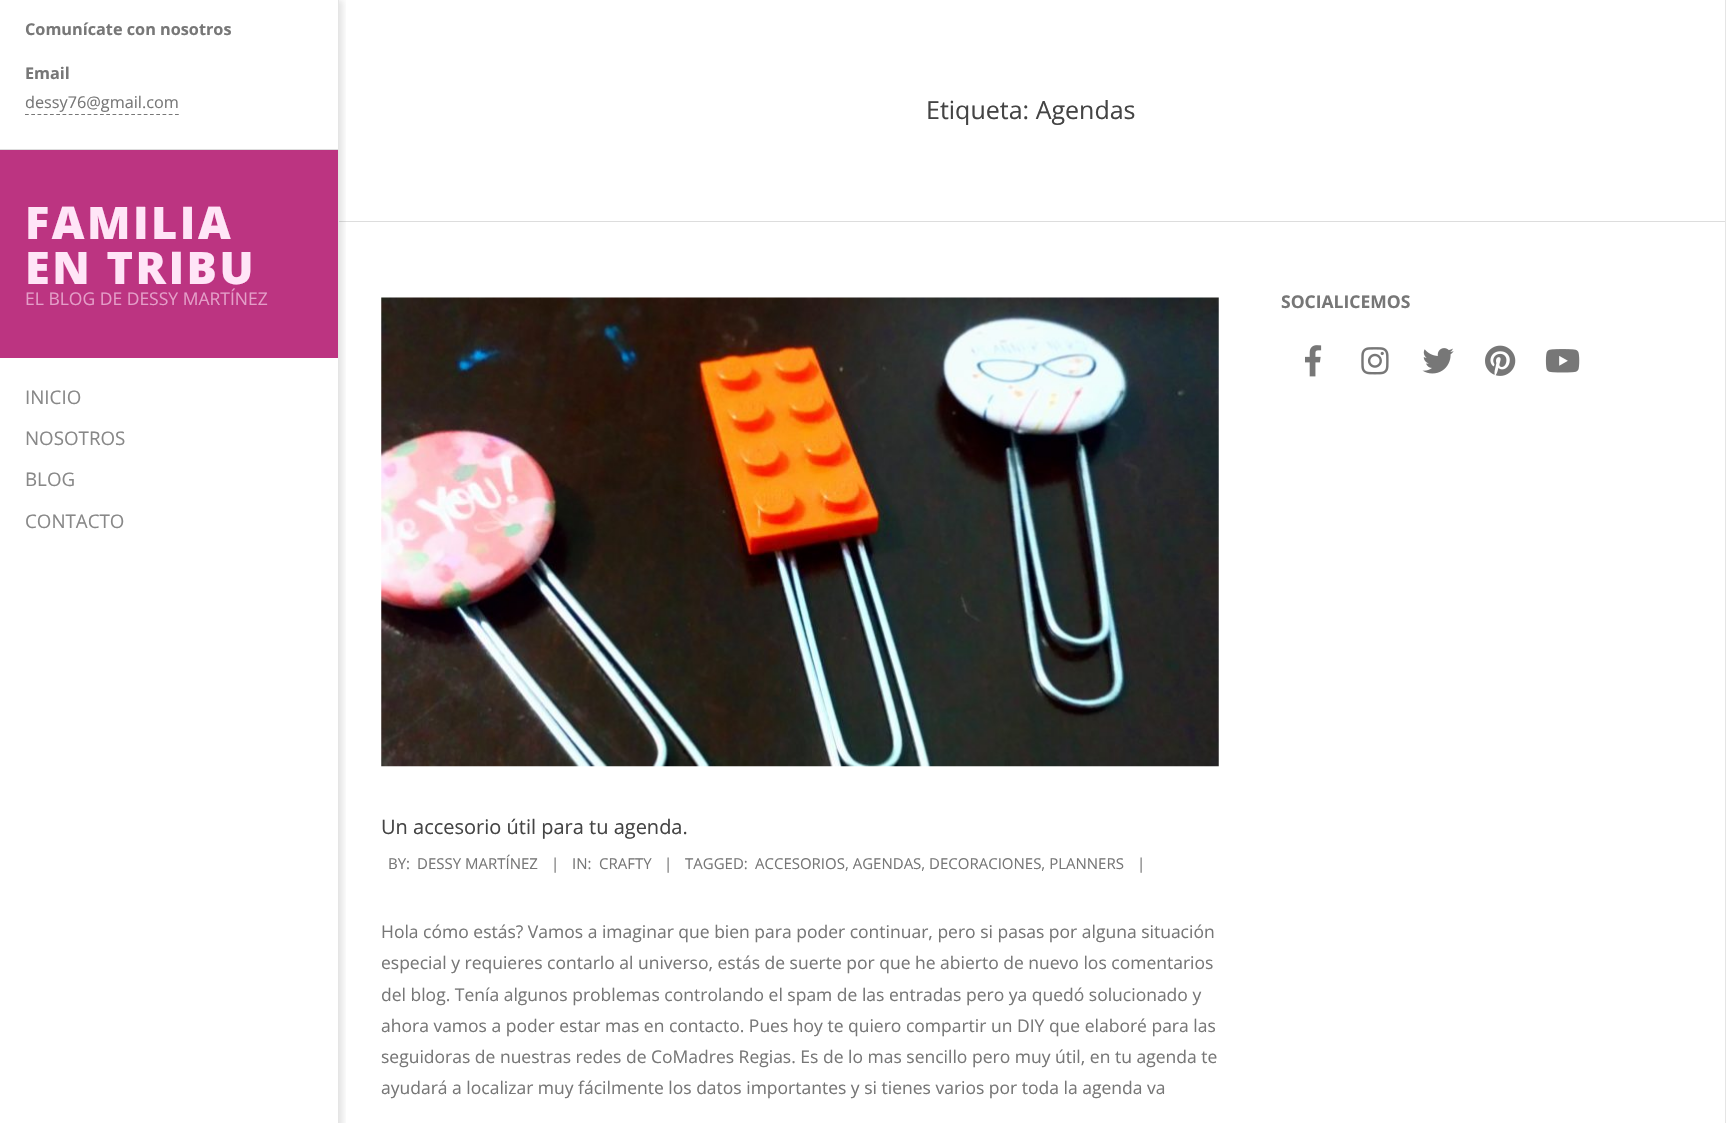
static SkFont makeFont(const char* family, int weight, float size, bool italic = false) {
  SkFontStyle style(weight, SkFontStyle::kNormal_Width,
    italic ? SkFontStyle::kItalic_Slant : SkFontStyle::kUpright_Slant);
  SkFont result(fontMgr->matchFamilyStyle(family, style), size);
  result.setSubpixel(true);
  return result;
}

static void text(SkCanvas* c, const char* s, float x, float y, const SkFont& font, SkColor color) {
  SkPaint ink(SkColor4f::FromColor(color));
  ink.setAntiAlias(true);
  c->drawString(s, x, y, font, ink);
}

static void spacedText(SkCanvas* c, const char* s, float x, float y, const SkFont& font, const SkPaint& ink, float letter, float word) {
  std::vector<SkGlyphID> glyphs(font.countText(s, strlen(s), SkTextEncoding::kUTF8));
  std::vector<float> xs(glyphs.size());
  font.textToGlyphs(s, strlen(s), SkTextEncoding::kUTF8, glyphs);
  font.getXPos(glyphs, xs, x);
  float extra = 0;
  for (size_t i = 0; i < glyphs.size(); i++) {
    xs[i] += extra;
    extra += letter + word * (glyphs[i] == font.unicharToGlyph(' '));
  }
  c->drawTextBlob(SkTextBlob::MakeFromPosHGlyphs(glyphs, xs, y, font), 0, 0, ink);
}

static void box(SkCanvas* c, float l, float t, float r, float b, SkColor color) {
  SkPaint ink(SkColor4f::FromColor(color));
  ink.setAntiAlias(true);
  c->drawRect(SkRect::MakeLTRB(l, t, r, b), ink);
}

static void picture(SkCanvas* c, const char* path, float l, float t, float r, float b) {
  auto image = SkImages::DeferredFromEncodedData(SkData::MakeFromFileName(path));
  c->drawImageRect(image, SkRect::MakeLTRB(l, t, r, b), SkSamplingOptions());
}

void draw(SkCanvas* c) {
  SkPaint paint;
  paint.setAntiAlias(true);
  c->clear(0xffffffff);
  box(c, 338, 221, 1725, 222, 0xffdddddd);
  c->save();
  c->clipRect(SkRect::MakeLTRB(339, 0, 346, 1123));
  paint.setColor(0x1a000000);
  paint.setMaskFilter(SkMaskFilter::MakeBlur(kNormal_SkBlurStyle, 3));
  c->drawRect(SkRect::MakeLTRB(4, 0, 343, 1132), paint);
  paint.setMaskFilter(nullptr);
  c->restore();
  box(c, 338, 0, 339, 1123, 0xffe5e5e5);
  box(c, 0, 149, 338, 150, 0xffdddddd);
  SkFont face1 = makeFont("Open Sans", 700, 16.25f);
  text(c, "Comunícate con nosotros", 25, 35, face1, 0xff777777);
  text(c, "Email", 25, 79, face1, 0xff777777);
  SkFont face2 = makeFont("Open Sans", 400, 16.25f);
  text(c, "dessy76@gmail.com", 25, 108, face2, 0xff777777);
  paint.setStyle(SkPaint::kStroke_Style);
  paint.setStrokeWidth(1.2f);
  paint.setColor(0xff777777);
  paint.setPathEffect(SkDashPathEffect::Make({{3.75f, 2.5f}}, 0));
  c->drawPath(SkPathBuilder().moveTo(25, 114.5f).lineTo(179, 114.5f).detach(), paint);
  paint.setPathEffect(nullptr);
  box(c, 0, 150, 338, 358, 0xffbc3481);
  SkFont face3 = makeFont("Open Sans", 800, 45);
  paint.setStyle(SkPaint::kFill_Style);
  paint.setColor(0xffffe5f7);
  spacedText(c, "FAMILIA", 25, 239, face3, paint, 2.5f, 0);
  spacedText(c, "EN TRIBU", 25, 284, face3, paint, 2.5f, 0);
  SkFont face4 = makeFont("Open Sans", 400, 17.5f);
  text(c, "EL BLOG DE DESSY MARTÍNEZ", 25, 305, face4, 0xffe49ec8);
  SkFont face5 = makeFont("Open Sans", 400, 18.75f);
  text(c, "INICIO", 25, 404, face5, 0xff888888);
  text(c, "NOSOTROS", 25, 445, face5, 0xff888888);
  text(c, "BLOG", 25, 486, face5, 0xff888888);
  text(c, "CONTACTO", 25, 528, face5, 0xff888888);
  box(c, 1725, 0, 1726, 1123, 0xffe5e5e5);
  SkFont face6 = makeFont("Open Sans", 400, 25);
  text(c, "Etiqueta: Agendas", 926, 119, face6, 0xff444444);
  SkFont face7 = makeFont("Open Sans", 700, 17.5f);
  text(c, "SOCIALICEMOS", 1281, 308, face7, 0xff777777);
  picture(c, "img_01.png", 1305, 345, 1322, 377);
  picture(c, "img_02.png", 1361, 347, 1389, 375);
  picture(c, "img_03.png", 1422, 348, 1454, 374);
  picture(c, "img_04.png", 1485, 345, 1516, 376);
  picture(c, "img_05.png", 1545, 349, 1580, 373);
  picture(c, "img_06.png", 381, 297, 1219, 767);
  SkFont face8 = makeFont("Open Sans", 400, 20);
  text(c, "Un accesorio útil para tu agenda.", 381, 834, face8, 0xff444444);
  SkFont face9 = makeFont("Open Sans", 400, 15);
  text(c, "BY:", 388, 869, face9, 0xff777777);
  text(c, "DESSY MARTÍNEZ", 417, 869, face9, 0xff777777);
  text(c, "|", 551, 869, face9, 0xff777777);
  text(c, "IN:", 572, 869, face9, 0xff777777);
  text(c, "CRAFTY", 599, 869, face9, 0xff777777);
  text(c, "|", 664, 869, face9, 0xff777777);
  text(c, "TAGGED:", 685, 869, face9, 0xff777777);
  text(c, "ACCESORIOS, AGENDAS, DECORACIONES, PLANNERS", 755, 869, face9, 0xff777777);
  text(c, "|", 1137, 869, face9, 0xff777777);
  text(c, "Hola cómo estás? Vamos a imaginar que bien para poder continuar, pero si pasas por alguna situación", 381, 938, face4, 0xff777777);
  text(c, "especial y requieres contarlo al universo, estás de suerte por que he abierto de nuevo los comentarios", 381, 969, face4, 0xff777777);
  text(c, "del blog. Tenía algunos problemas controlando el spam de las entradas pero ya quedó solucionado y", 381, 1001, face4, 0xff777777);
  text(c, "ahora vamos a poder estar mas en contacto. Pues hoy te quiero compartir un DIY que elaboré para las", 381, 1032, face4, 0xff777777);
  text(c, "seguidoras de nuestras redes de CoMadres Regias. Es de lo mas sencillo pero muy útil, en tu agenda te", 381, 1063, face4, 0xff777777);
  text(c, "ayudará a localizar muy fácilmente los datos importantes y si tienes varios por toda la agenda va", 381, 1094, face4, 0xff777777);
}
